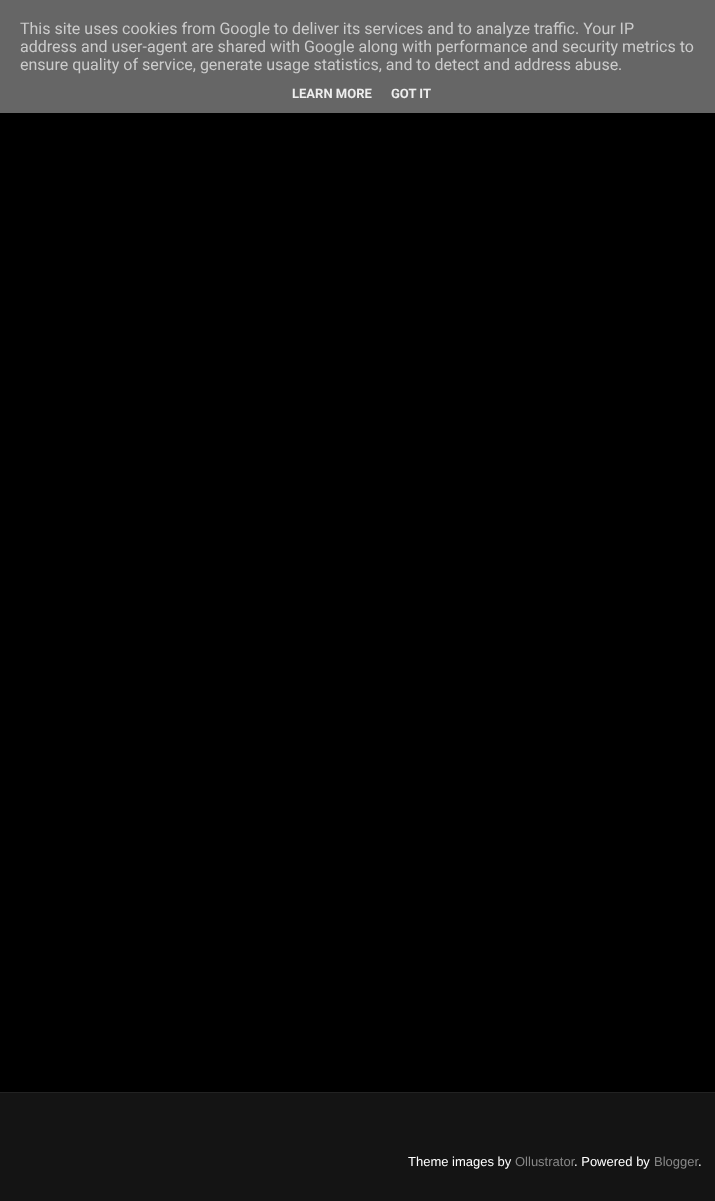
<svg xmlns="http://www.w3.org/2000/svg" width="715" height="1201">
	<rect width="100%" height="100%" fill="#000000" />
	<rect x="0" y="0" width="715" height="113" fill="#666666" />
	<g font-family="Roboto" font-size="16" fill="#CCCCCC">
		<text x="20" y="34">This site uses cookies from Google to deliver its services and to analyze traffic. Your IP</text>
		<text x="20" y="52">address and user-agent are shared with Google along with performance and security metrics to</text>
		<text x="20" y="70">ensure quality of service, generate usage statistics, and to detect and address abuse.</text>
	</g>
	<g font-family="Roboto" font-size="13" font-weight="700" fill="#EEEEEE">
		<text x="292" y="98">LEARN MORE</text>
		<text x="391" y="98">GOT IT</text>
	</g>
	<rect x="0" y="1093" width="715" height="108" fill="#141414" />
	<rect x="0" y="1092" width="715" height="1" fill="#222222" />
	<text x="408" y="1166" font-family="Liberation Sans" font-size="13" fill="#FFFFFF">Theme images by</text>
	<text x="515" y="1166" font-family="Liberation Sans" font-size="13" fill="#888888">Ollustrator</text>
	<text x="574" y="1166" font-family="Liberation Sans" font-size="13" fill="#FFFFFF">. Powered by</text>
	<text x="654" y="1166" font-family="Liberation Sans" font-size="13" fill="#888888">Blogger</text>
	<text x="698" y="1166" font-family="Liberation Sans" font-size="13" fill="#FFFFFF">.</text>
</svg>
